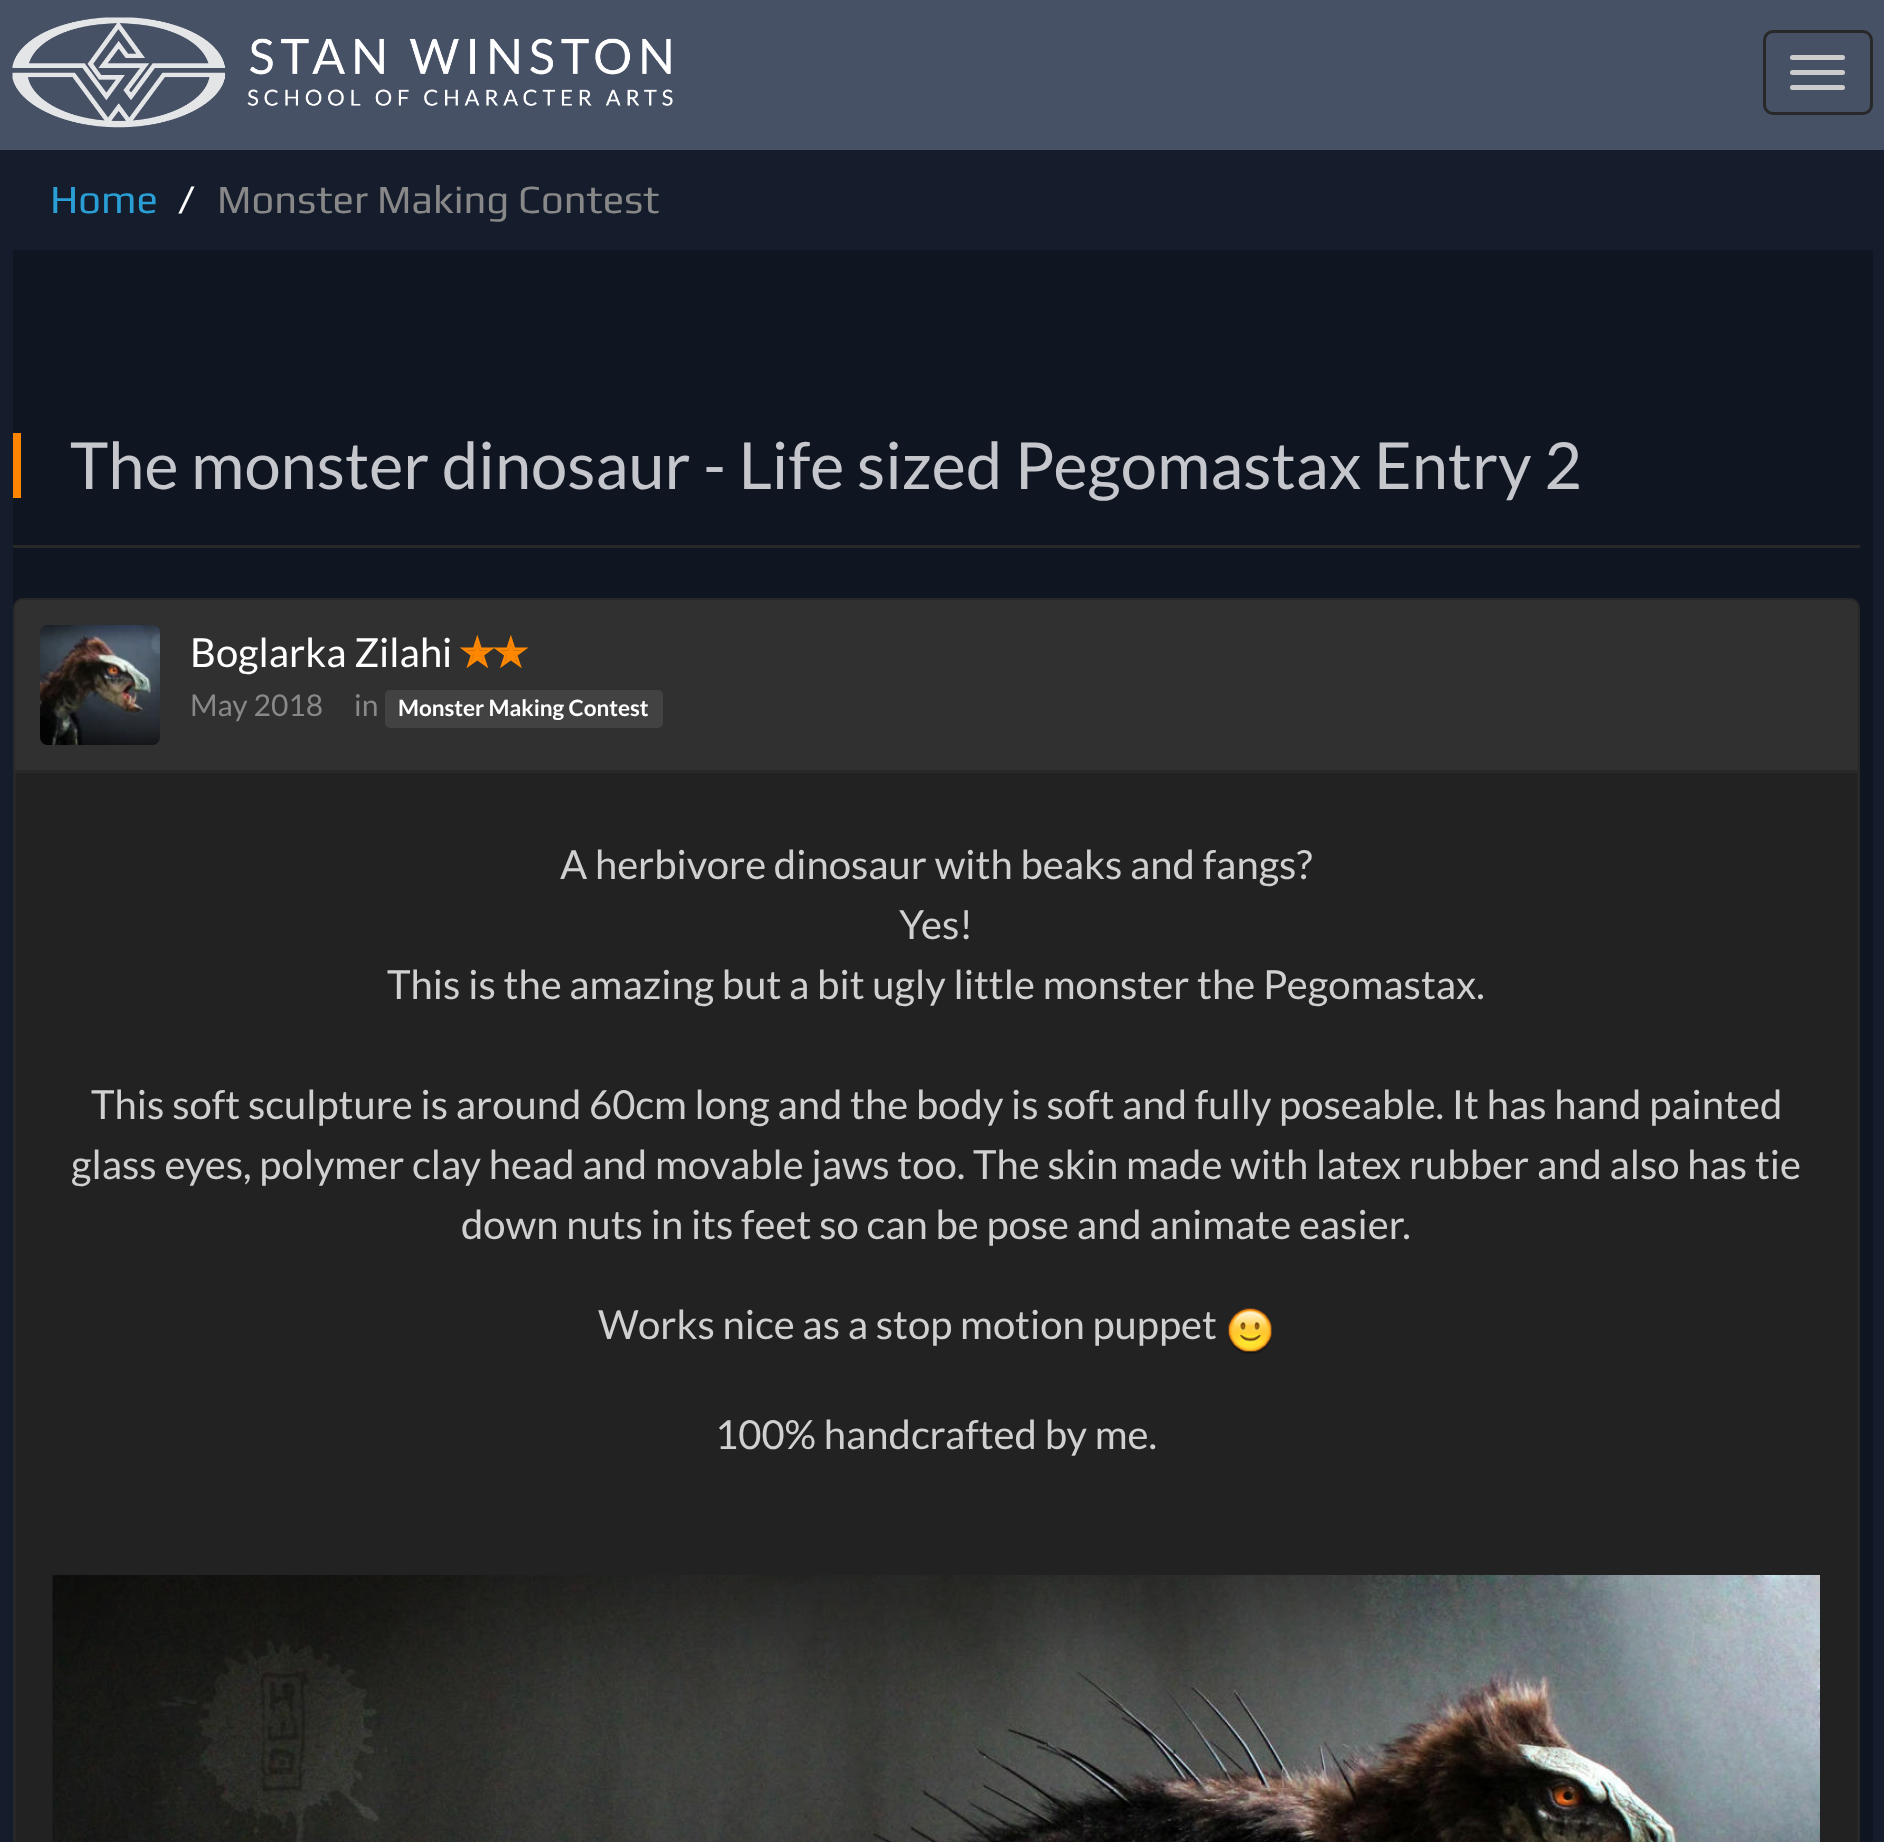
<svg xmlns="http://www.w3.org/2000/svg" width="1884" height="1842">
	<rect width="100%" height="100%" fill="#151C2B" />
	<rect x="0" y="0" width="1884" height="150" fill="#475166" />
	<image x="12" y="17" width="661" height="111" href="assets/img1.png" />
	<rect x="1764.5" y="31.5" width="107" height="82" rx="8.5" fill="none" stroke="#282828" stroke-width="3" />
	<rect x="1790" y="55" width="55" height="5" rx="2.5" fill="#CCCCCC" />
	<rect x="1790" y="70" width="55" height="5" rx="2.5" fill="#CCCCCC" />
	<rect x="1790" y="85" width="55" height="5" rx="2.5" fill="#CCCCCC" />
	<text x="50" y="213" font-family="Play" font-size="40" fill="#2A9FD6">Home</text>
	<text x="178" y="213" font-family="Play" font-size="40" fill="#FFFFFF">/</text>
	<text x="217" y="213" font-family="Play" font-size="40" fill="#888888">Monster Making Contest</text>
	<rect x="13" y="250" width="1860" height="1592" fill="#0F1521" />
	<rect x="13" y="545" width="1847" height="3" fill="#282828" />
	<rect x="13" y="433" width="8" height="65" fill="#FF8400" />
	<text x="70" y="489" font-family="Lato" font-size="65" fill="#C6C7CD">The monster dinosaur - Life sized Pegomastax Entry 2</text>
	<rect x="14.5" y="599.5" width="1844" height="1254" rx="8.5" fill="#222222" stroke="#282828" stroke-width="3" />
	<path d="M23 600H1850C1854.5 600 1858 603.5 1858 608V773H15V608C15 603.5 18.5 600 23 600Z" fill="#303030" />
	<rect x="15" y="770" width="1843" height="3" fill="#282828" />
	<image x="40" y="625" width="120" height="120" href="assets/img2.png" />
	<text x="190" y="667" font-family="Lato" font-size="40" fill="#FFFFFF">Boglarka Zilahi</text>
	<text x="460" y="667" font-family="DejaVu Sans" font-size="40" font-weight="700" fill="#FF8800">✭✭</text>
	<g font-family="Lato" font-size="30" fill="#888888">
		<text x="190" y="716">May 2018</text>
		<text x="354" y="716">in</text>
	</g>
	<rect x="385" y="690" width="278" height="38" rx="5" fill="#424242" />
	<text x="398" y="716" font-family="Lato" font-size="22.5" font-weight="700" fill="#FFFFFF">Monster Making Contest</text>
	<g font-family="Lato" font-size="40" fill="#D0D0D0">
		<text x="560" y="879">A herbivore dinosaur with beaks and fangs?</text>
		<text x="899" y="939">Yes!</text>
		<text x="387" y="999">This is the amazing but a bit ugly little monster the Pegomastax.</text>
		<text x="91" y="1119">This soft sculpture is around 60cm long and the body is soft and fully poseable. It has hand painted</text>
		<text x="71" y="1179">glass eyes, polymer clay head and movable jaws too. The skin made with latex rubber and also has tie</text>
		<text x="461" y="1239">down nuts in its feet so can be pose and animate easier.</text>
		<text x="598" y="1339">Works nice as a stop motion puppet</text>
	</g>
	<image x="1228" y="1308" width="44" height="46" href="assets/img3.png" />
	<text x="715" y="1449" font-family="Lato" font-size="40" fill="#D0D0D0">100% handcrafted by me.</text>
	<image x="52" y="1575" width="1768" height="267" href="assets/img4.png" />
</svg>
